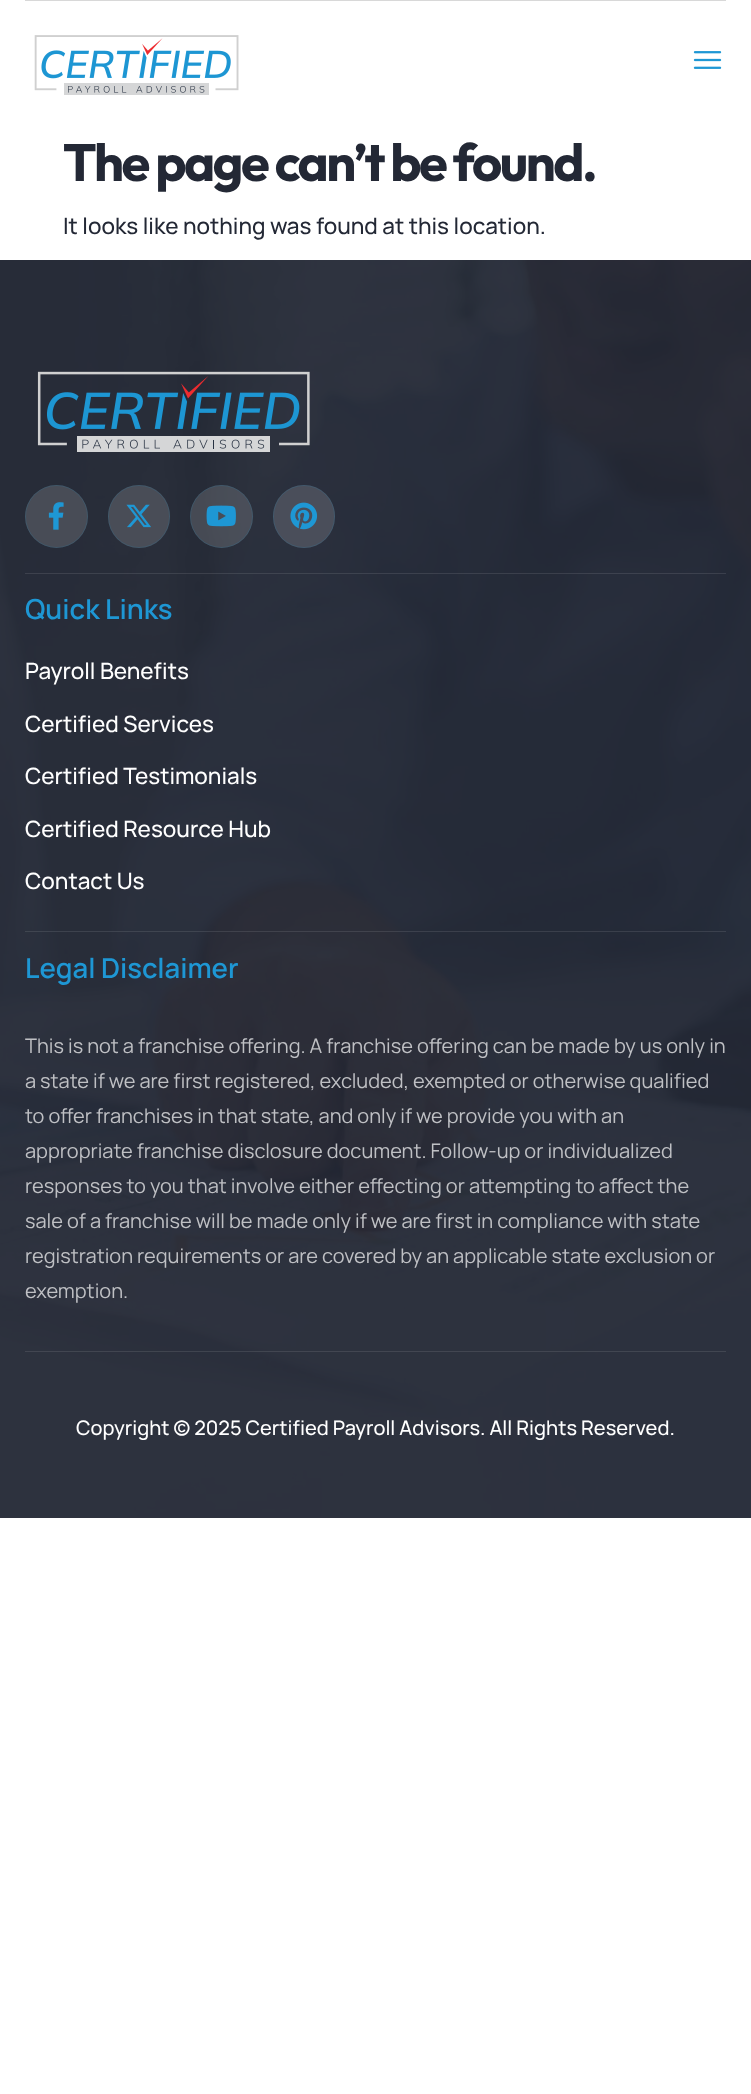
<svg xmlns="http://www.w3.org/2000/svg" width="751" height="2094">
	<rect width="100%" height="100%" fill="#FFFFFF" />
	<rect x="0" y="1517" width="751" height="1" fill="#2E333F" />
	<rect x="25" y="0" width="701" height="1" fill="#D8D8D8" />
	<image x="34" y="35" width="205" height="60" href="assets/img1.png" />
	<image x="693" y="51" width="29" height="18" href="assets/img2.png" />
	<text x="63" y="181" font-family="Outfit" font-size="52.5" font-weight="700" letter-spacing="-2.5" fill="#232835">The page can’t be found.</text>
	<text x="63" y="234" font-family="Manrope" font-size="22.5" font-weight="500" fill="#232835">It looks like nothing was found at this location.</text>
	<image x="0" y="260" width="751" height="1258" href="assets/img3.png" />
	<rect x="25" y="1351" width="701" height="1" fill="#FFFFFF" fill-opacity="0.1" />
	<rect x="25" y="573" width="701" height="1" fill="#FFFFFF" fill-opacity="0.1" />
	<image x="37" y="371" width="273" height="81" href="assets/img4.png" />
	<circle cx="56.5" cy="516.5" r="31.5" fill="#484C56" />
	<circle cx="56.5" cy="516.5" r="31" fill="none" stroke="#1E97D4" stroke-opacity="0.15" />
	<image x="48" y="502" width="16" height="28" href="assets/img5.png" />
	<rect x="108" y="485" width="62" height="63" rx="31" fill="#494D57" />
	<rect x="108.5" y="485.5" width="61" height="62" rx="30.5" fill="none" stroke="#1E97D4" stroke-opacity="0.15" />
	<image x="126" y="504" width="25" height="24" href="assets/img6.png" />
	<circle cx="221.5" cy="516.5" r="31.5" fill="#FFFFFF" fill-opacity="0.15" />
	<circle cx="221.5" cy="516.5" r="31" fill="none" stroke="#1E97D4" stroke-opacity="0.15" />
	<image x="206" y="505" width="30" height="22" href="assets/img7.png" />
	<rect x="273" y="485" width="62" height="63" rx="31" fill="#4A4E5A" />
	<rect x="273.5" y="485.5" width="61" height="62" rx="30.5" fill="none" stroke="#1E97D4" stroke-opacity="0.15" />
	<image x="290" y="502" width="28" height="28" href="assets/img8.png" />
	<rect x="25" y="931" width="701" height="1" fill="#FFFFFF" fill-opacity="0.1" />
	<text x="25" y="619" font-family="Manrope" font-size="27.5" font-weight="600" fill="#1E97D4">Quick Links</text>
	<g font-family="Manrope" font-size="22.5" font-weight="500" fill="#FFFFFF">
		<text x="25" y="679">Payroll Benefits</text>
		<text x="25" y="732">Certified Services</text>
		<text x="25" y="784">Certified Testimonials</text>
		<text x="25" y="837">Certified Resource Hub</text>
		<text x="25" y="889">Contact Us</text>
	</g>
	<text x="25" y="978" font-family="Manrope" font-size="27.5" font-weight="600" fill="#1E97D4">Legal Disclaimer</text>
	<g font-family="Manrope" font-size="20" fill="#BFC0C4">
		<text x="25" y="1053">This is not a franchise offering. A franchise offering can be made by us only in</text>
		<text x="25" y="1088">a state if we are first registered, excluded, exempted or otherwise qualified</text>
		<text x="25" y="1123">to offer franchises in that state, and only if we provide you with an</text>
		<text x="25" y="1158">appropriate franchise disclosure document. Follow-up or individualized</text>
		<text x="25" y="1193">responses to you that involve either effecting or attempting to affect the</text>
		<text x="25" y="1228">sale of a franchise will be made only if we are first in compliance with state</text>
		<text x="25" y="1263">registration requirements or are covered by an applicable state exclusion or</text>
		<text x="25" y="1298">exemption.</text>
	</g>
	<text x="76" y="1435" font-family="Manrope" font-size="20" font-weight="500" fill="#FFFFFF">Copyright © 2025 Certified Payroll Advisors. All Rights Reserved.</text>
</svg>
